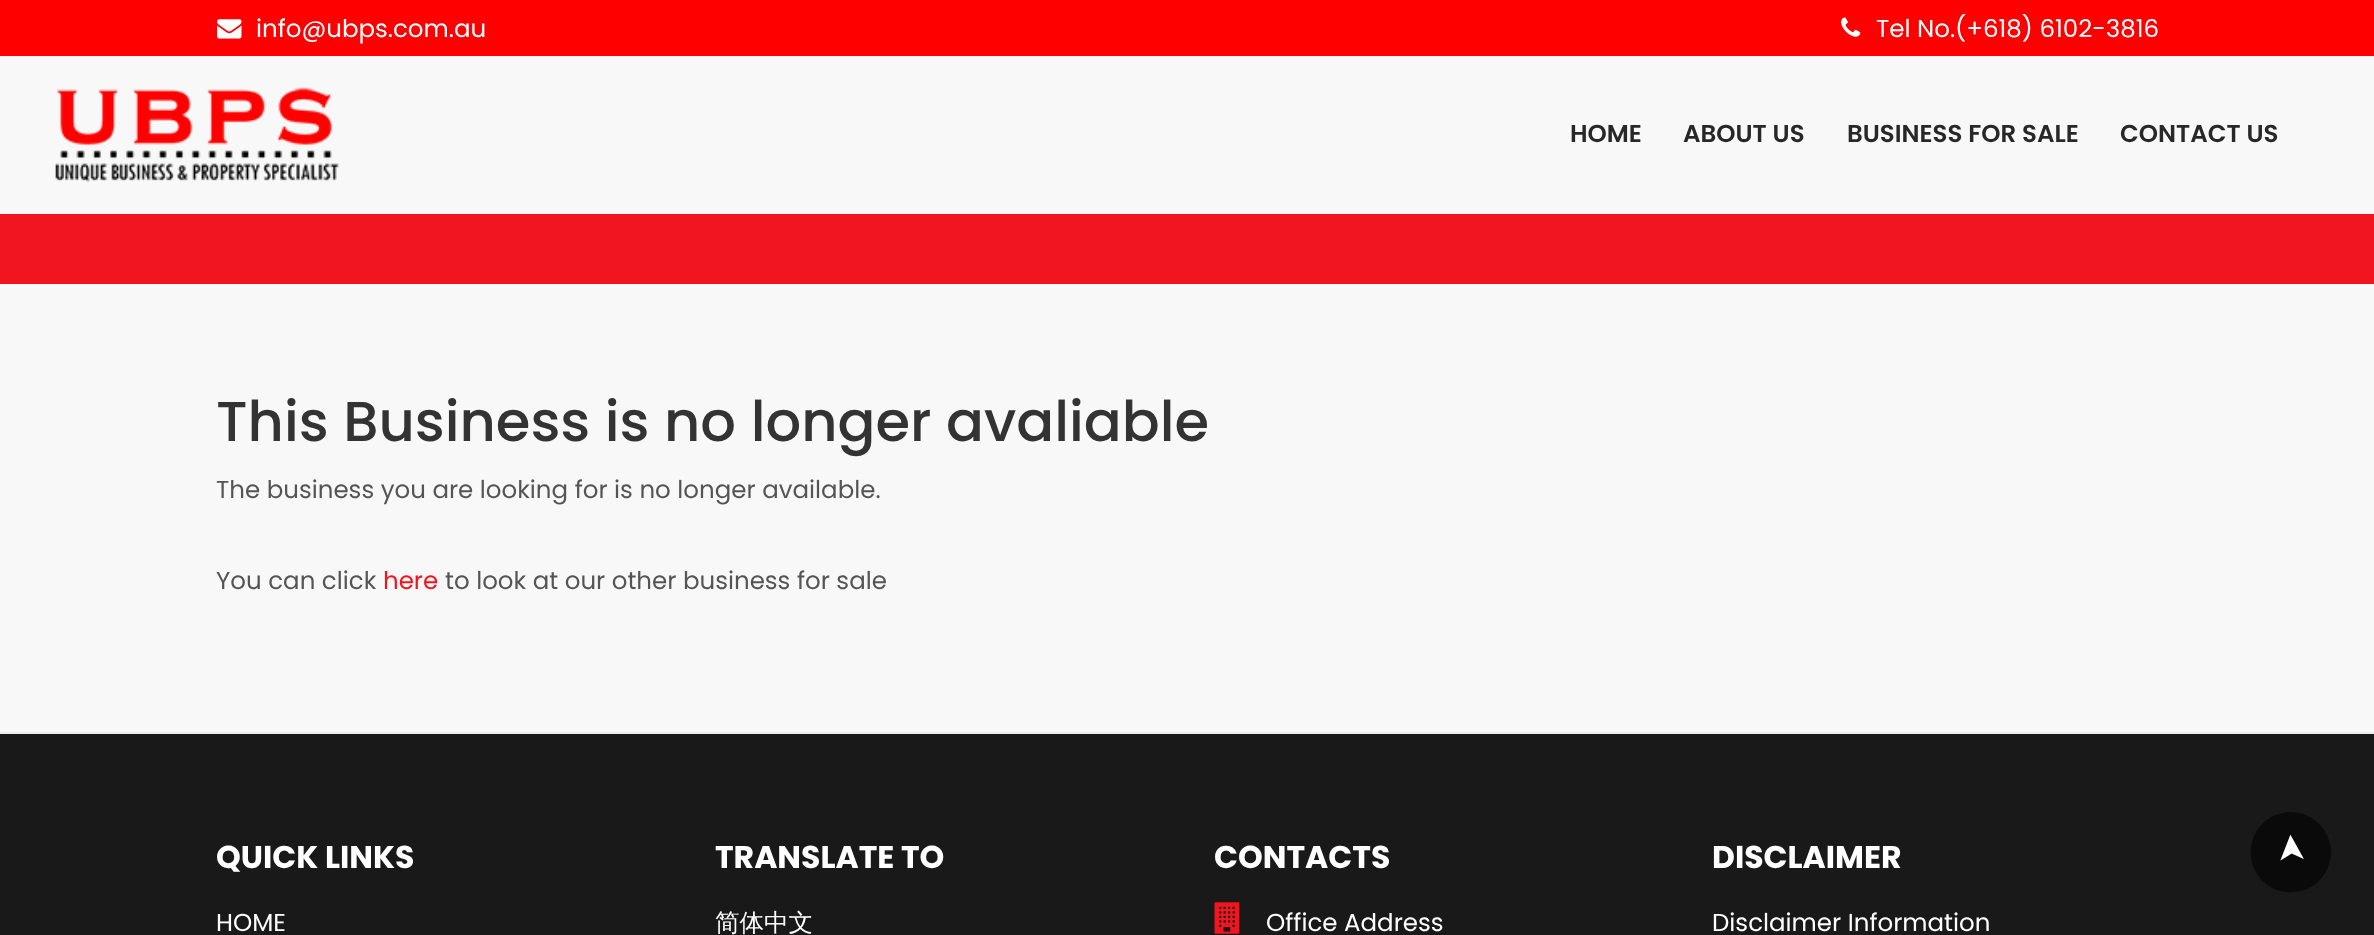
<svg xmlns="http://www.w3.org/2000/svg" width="2374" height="935">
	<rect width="100%" height="100%" fill="#F8F8F8" />
	<rect x="0" y="0" width="2374" height="56" fill="#FF0000" />
	<image x="217" y="19" width="25" height="20" href="assets/img1.png" />
	<text x="256" y="37" font-family="Poppins" font-size="24.5" fill="#FFFFFF">info@ubps.com.au</text>
	<image x="1841" y="17" width="20" height="20" href="assets/img2.png" />
	<text x="1876" y="37" font-family="Poppins" font-size="24.5" fill="#FFFFFF">Tel No.(+618) 6102-3816</text>
	<image x="55" y="87" width="284" height="95" href="assets/img3.png" />
	<g font-family="Poppins" font-size="24.5" font-weight="600" fill="#282828">
		<text x="1570" y="142">HOME</text>
		<text x="1683" y="142">ABOUT US</text>
		<text x="1847" y="142">BUSINESS FOR SALE</text>
		<text x="2120" y="142">CONTACT US</text>
	</g>
	<rect x="0" y="214" width="2374" height="70" fill="#F0151F" />
	<text x="216" y="441" font-family="Poppins" font-size="56" font-weight="500" fill="#333333">This Business is no longer avaliable</text>
	<g font-family="Poppins" font-size="24.5" fill="#555555">
		<text x="216" y="498">The business you are looking for is no longer available.</text>
		<text x="216" y="589">You can click</text>
	</g>
	<text x="383" y="589" font-family="Poppins" font-size="24.5" fill="#F0151F">here</text>
	<text x="445" y="589" font-family="Poppins" font-size="24.5" fill="#555555">to look at our other business for sale</text>
	<rect x="0" y="734" width="2374" height="201" fill="#191919" />
	<rect x="0" y="732" width="2374" height="2" fill="#EDEDED" />
	<text x="216" y="868" font-family="Poppins" font-size="31.5" font-weight="700" fill="#FFFFFF">QUICK LINKS</text>
	<text x="216" y="931" font-family="Poppins" font-size="24.5" fill="#FFFFFF">HOME</text>
	<text x="715" y="868" font-family="Poppins" font-size="31.5" font-weight="700" fill="#FFFFFF">TRANSLATE TO</text>
	<text x="715" y="931" font-family="WenQuanYi Zen Hei" font-size="24.5" font-weight="500" fill="#FFFFFF">简体中文</text>
	<text x="1214" y="868" font-family="Poppins" font-size="31.5" font-weight="700" fill="#FFFFFF">CONTACTS</text>
	<image x="1214" y="902" width="26" height="32" href="assets/img4.png" />
	<text x="1266" y="931" font-family="Poppins" font-size="24.5" fill="#FFFFFF">Office Address</text>
	<text x="1712" y="868" font-family="Poppins" font-size="31.5" font-weight="700" fill="#FFFFFF">DISCLAIMER</text>
	<text x="1712" y="931" font-family="Poppins" font-size="24.5" fill="#FFFFFF">Disclaimer Information</text>
	<path d="M2251 855C2249 833 2266 814 2288 812C2310 811 2329 827 2331 849C2332 872 2316 891 2294 892C2271 894 2252 877 2251 855Z" fill="#0A0A0A" />
	<text x="2304" y="863" transform="rotate(-94 2304 863)" font-family="DejaVu Sans" font-size="37" fill="#FFFFFF">➤</text>
</svg>
